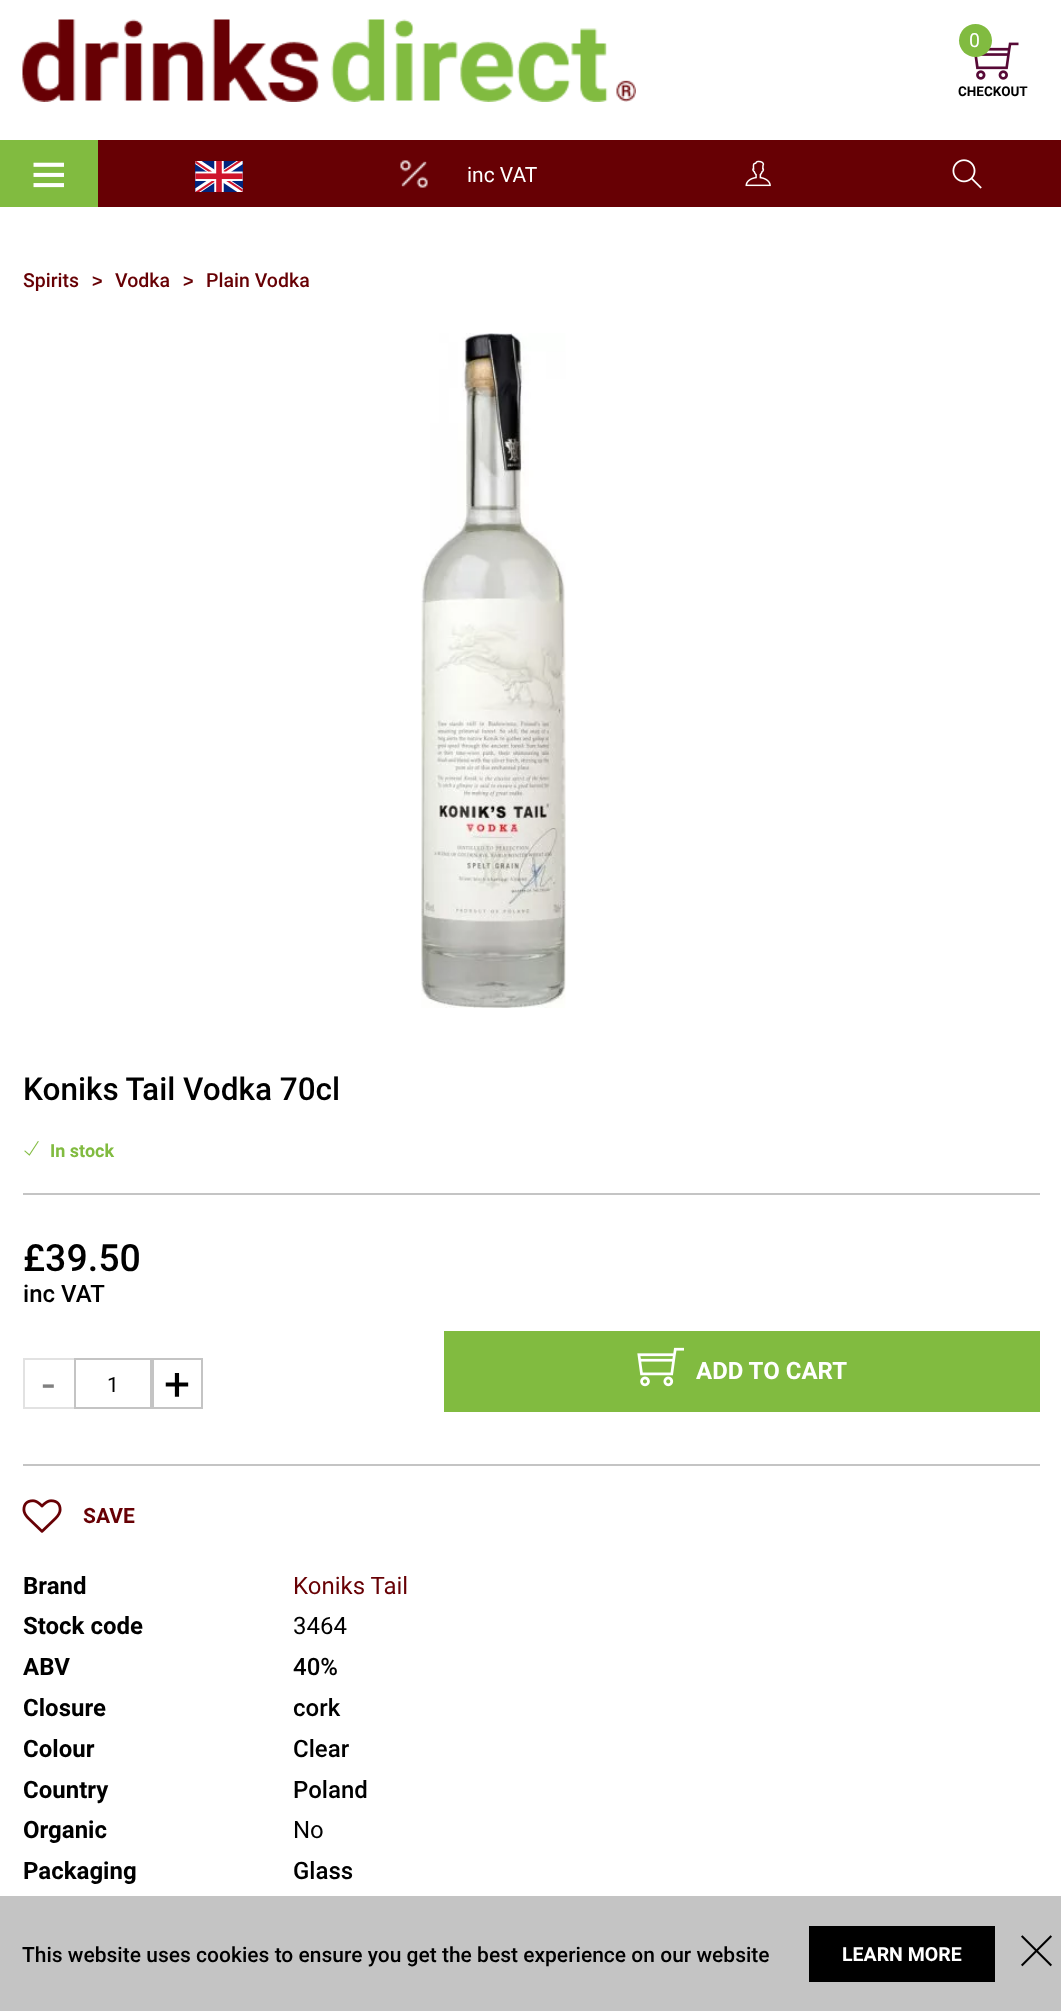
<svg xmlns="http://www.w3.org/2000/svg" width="1061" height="2011">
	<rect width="100%" height="100%" fill="#FFFFFF" />
	<image x="22" y="19" width="614" height="83" href="assets/img1.png" />
	<image x="974" y="42" width="45" height="38" href="assets/img2.png" />
	<circle cx="975.5" cy="40.5" r="16.5" fill="#81BB40" />
	<text x="969" y="47" font-family="Roboto" font-size="19.5" fill="#FFFFFF">0</text>
	<text x="958" y="96" font-family="Roboto" font-size="13.5" font-weight="700" fill="#000000">CHECKOUT</text>
	<rect x="0" y="140" width="98" height="67" fill="#81BB40" />
	<image x="33" y="162" width="31" height="26" href="assets/img3.png" />
	<rect x="98" y="140" width="963" height="67" fill="#670004" />
	<image x="195" y="161" width="48" height="31" href="assets/img4.png" />
	<image x="400" y="160" width="28" height="28" href="assets/img5.png" />
	<text x="467" y="182" font-family="Roboto" font-size="21" fill="#FFFFFF">inc VAT</text>
	<image x="745" y="160" width="26" height="27" href="assets/img6.png" />
	<image x="952" y="159" width="30" height="30" href="assets/img7.png" />
	<text x="23" y="287" font-family="Roboto" font-size="19.5" font-weight="500" fill="#670004">Spirits</text>
	<text x="92" y="287" font-family="Liberation Sans" font-size="18" font-weight="700" fill="#670004">&gt;</text>
	<text x="115" y="287" font-family="Roboto" font-size="19.5" font-weight="500" fill="#670004">Vodka</text>
	<text x="183" y="287" font-family="Liberation Sans" font-size="18" font-weight="700" fill="#670004">&gt;</text>
	<text x="206" y="287" font-family="Roboto" font-size="19.5" font-weight="500" fill="#670004">Plain Vodka</text>
	<image x="421" y="333" width="145" height="675" href="assets/img8.png" />
	<text x="23" y="1100" font-family="Roboto" font-size="31.5" font-weight="500" fill="#000000">Koniks Tail Vodka 70cl</text>
	<rect x="23" y="1193" width="1017" height="2" fill="#C4C4C4" />
	<image x="24" y="1141" width="15" height="15" href="assets/img9.png" />
	<text x="50" y="1157" font-family="Roboto" font-size="18" font-weight="700" fill="#81BB40">In stock</text>
	<rect x="23" y="1464" width="1017" height="2" fill="#C4C4C4" />
	<text x="23" y="1271" font-family="Roboto" font-size="37.5" font-weight="500" fill="#000000">£39.50</text>
	<text x="23" y="1302" font-family="Roboto" font-size="24" font-weight="500" fill="#000000">inc VAT</text>
	<rect x="23" y="1358" width="51" height="2" fill="#E2E2E2" />
	<rect x="23" y="1407" width="51" height="2" fill="#E2E2E2" />
	<rect x="23" y="1358" width="2" height="51" fill="#E2E2E2" />
	<text x="42" y="1400" font-family="Roboto" font-size="46" fill="#808080">-</text>
	<rect x="75" y="1359" width="76" height="49" fill="none" stroke="#C4C4C4" stroke-width="2" />
	<text x="107" y="1392" font-family="Roboto" font-size="21" fill="#000000">1</text>
	<rect x="153" y="1359" width="49" height="49" fill="none" stroke="#C4C4C4" stroke-width="2" />
	<text x="164" y="1400" font-family="Roboto" font-size="46" fill="#000000">+</text>
	<rect x="444" y="1331" width="596" height="81" fill="#81BB40" />
	<image x="637" y="1347" width="47" height="40" href="assets/img10.png" />
	<text x="696" y="1379" font-family="Roboto" font-size="24" font-weight="700" fill="#FFFFFF">ADD TO CART</text>
	<image x="22" y="1499" width="40" height="34" href="assets/img11.png" />
	<text x="83" y="1523" font-family="Roboto" font-size="21" font-weight="700" fill="#670004">SAVE</text>
	<text x="23" y="1594" font-family="Roboto" font-size="24" font-weight="700" fill="#000000">Brand</text>
	<text x="293" y="1594" font-family="Roboto" font-size="24" fill="#670004">Koniks Tail</text>
	<text x="23" y="1634" font-family="Roboto" font-size="24" font-weight="700" fill="#000000">Stock code</text>
	<text x="293" y="1634" font-family="Roboto" font-size="24" fill="#000000">3464</text>
	<text x="23" y="1675" font-family="Roboto" font-size="24" font-weight="700" fill="#000000">ABV</text>
	<text x="293" y="1675" font-family="Roboto" font-size="24" font-weight="500" fill="#000000">40%</text>
	<text x="23" y="1716" font-family="Roboto" font-size="24" font-weight="700" fill="#000000">Closure</text>
	<text x="293" y="1716" font-family="Roboto" font-size="24" font-weight="500" fill="#000000">cork</text>
	<text x="23" y="1757" font-family="Roboto" font-size="24" font-weight="700" fill="#000000">Colour</text>
	<text x="293" y="1757" font-family="Roboto" font-size="24" font-weight="500" fill="#000000">Clear</text>
	<text x="23" y="1798" font-family="Roboto" font-size="24" font-weight="700" fill="#000000">Country</text>
	<text x="293" y="1798" font-family="Roboto" font-size="24" font-weight="500" fill="#000000">Poland</text>
	<text x="23" y="1838" font-family="Roboto" font-size="24" font-weight="700" fill="#000000">Organic</text>
	<text x="293" y="1838" font-family="Roboto" font-size="24" fill="#000000">No</text>
	<text x="23" y="1879" font-family="Roboto" font-size="24" font-weight="700" fill="#000000">Packaging</text>
	<text x="293" y="1879" font-family="Roboto" font-size="24" font-weight="500" fill="#000000">Glass</text>
	<rect x="0" y="1896" width="1061" height="115" fill="#C4C4C4" />
	<text x="22" y="1962" font-family="Roboto" font-size="21" font-weight="500" fill="#000000">This website uses cookies to ensure you get the best experience on our website</text>
	<rect x="809" y="1926" width="186" height="56" fill="#000000" />
	<text x="842" y="1961" font-family="Roboto" font-size="19.5" font-weight="700" fill="#FFFFFF">LEARN MORE</text>
	<image x="1021" y="1935" width="31" height="32" href="assets/img12.png" />
</svg>
